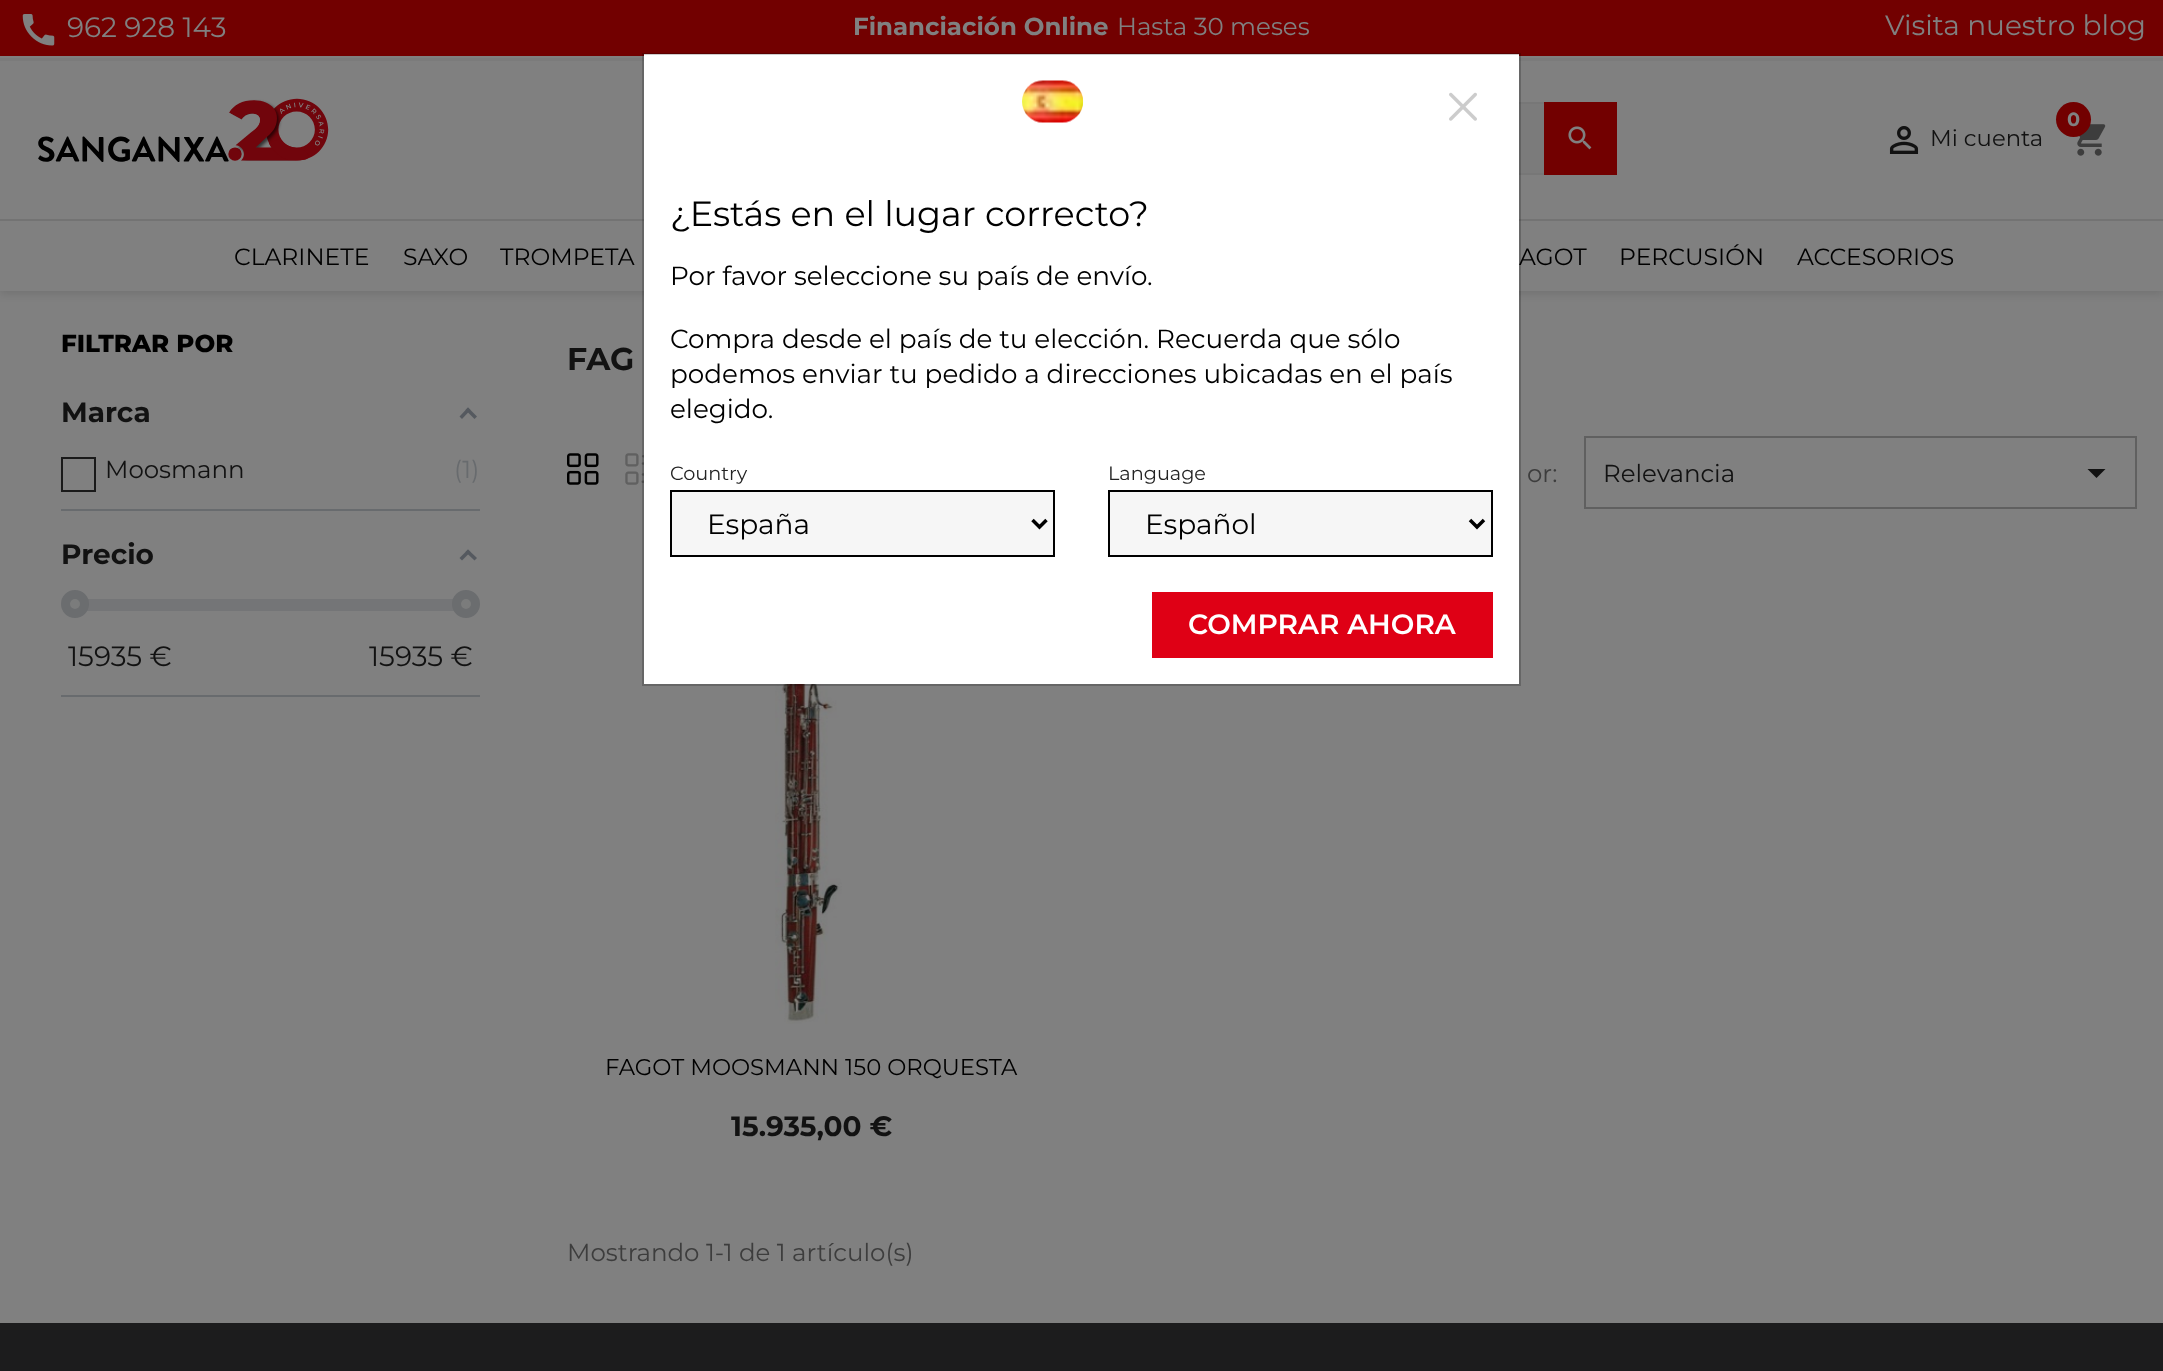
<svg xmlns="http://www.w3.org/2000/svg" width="2163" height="1371">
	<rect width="100%" height="100%" fill="#808080" />
	<rect x="0" y="4" width="2163" height="290" fill="#000000" fill-opacity="0.11" filter="blur(4.5px)" />
	<rect x="0" y="56" width="2163" height="2" fill="#808080" />
	<rect x="0" y="0" width="2163" height="56" fill="#720000" />
	<image x="22" y="14" width="33" height="32" href="assets/img1.png" />
	<text x="67" y="37" font-family="Montserrat" font-size="28" fill="#808080">962 928 143</text>
	<text x="853" y="35" font-family="Montserrat" font-size="24.5" font-weight="700" fill="#808080">Financiación Online</text>
	<text x="1117" y="35" font-family="Montserrat" font-size="24.5" fill="#808080">Hasta 30 meses</text>
	<text x="1885" y="35" font-family="Montserrat" font-size="28" fill="#808080">Visita nuestro blog</text>
	<rect x="0" y="58" width="2163" height="3" fill="#7B7B7B" />
	<rect x="0" y="61" width="2163" height="230" fill="#808080" />
	<image x="38" y="98" width="291" height="64" href="assets/img2.png" />
	<rect x="1519" y="104" width="25" height="69" fill="#7B7B7B" />
	<rect x="656" y="103" width="960" height="71" fill="none" stroke="#777777" stroke-width="2" />
	<rect x="1544" y="102" width="73" height="73" fill="#720000" />
	<image x="1568" y="126" width="24" height="24" href="assets/img3.png" />
	<image x="2077" y="124" width="29" height="32" href="assets/img4.png" />
	<circle cx="2073.5" cy="119.5" r="17.5" fill="#720000" />
	<text x="2067" y="126" font-family="Montserrat" font-size="19.25" font-weight="700" fill="#808080">0</text>
	<image x="1889" y="126" width="30" height="28" href="assets/img5.png" />
	<text x="1930" y="146" font-family="Montserrat" font-size="22.75" fill="#121212">Mi cuenta</text>
	<rect x="0" y="219" width="2163" height="2" fill="#737373" />
	<g font-family="Montserrat" font-size="23.5" fill="#000000">
		<text x="234" y="265">CLARINETE</text>
		<text x="403" y="265">SAXO</text>
		<text x="500" y="265">TROMPETA</text>
		<text x="1519" y="265">AGOT</text>
		<text x="1619" y="265">PERCUSIÓN</text>
		<text x="1797" y="265">ACCESORIOS</text>
	</g>
	<rect x="0" y="1323" width="2163" height="48" fill="#1C1C1D" />
	<rect x="644" y="54" width="875" height="630" fill="#FFFFFF" />
	<image x="625" y="453" width="19" height="32" href="assets/img9.png" />
	<image x="775" y="684" width="67" height="340" href="assets/img10.png" />
	<rect x="643" y="54" width="877" height="631" fill="none" stroke="#000000" stroke-opacity="0.2" stroke-width="2" />
	<image x="1022" y="80" width="62" height="43" href="assets/img6.png" />
	<image x="1449" y="92" width="28" height="29" href="assets/img7.png" />
	<text x="670" y="226" font-family="Montserrat" font-size="35" fill="#000000">¿Estás en el lugar correcto?</text>
	<g font-family="Montserrat" font-size="26.25" fill="#000000">
		<text x="670" y="285">Por favor seleccione su país de envío.</text>
		<text x="670" y="348">Compra desde el país de tu elección. Recuerda que sólo</text>
		<text x="670" y="383">podemos enviar tu pedido a direcciones ubicadas en el país</text>
		<text x="670" y="418">elegido.</text>
	</g>
	<text x="670" y="480" font-family="Montserrat" font-size="19.25" fill="#232323">Country</text>
	<rect x="671" y="491" width="383" height="65" fill="#F6F6F6" stroke="#000000" stroke-width="2" />
	<path d="M1032.5 520L1039.5 527L1046.5 520" fill="none" stroke="#000000" stroke-width="3.5" />
	<text x="707" y="534" font-family="Montserrat" font-size="28" fill="#000000">España</text>
	<text x="1108" y="480" font-family="Montserrat" font-size="19.25" fill="#232323">Language</text>
	<rect x="1109" y="491" width="383" height="65" fill="#F6F6F6" stroke="#000000" stroke-width="2" />
	<path d="M1470 520L1477 527L1484 520" fill="none" stroke="#000000" stroke-width="3.5" />
	<text x="1145" y="534" font-family="Montserrat" font-size="28" fill="#000000">Español</text>
	<rect x="1152" y="592" width="341" height="66" fill="#DF0015" />
	<text x="1188" y="634" font-family="Montserrat" font-size="28" font-weight="600" fill="#FFFFFF">COMPRAR AHORA</text>
	<text x="61" y="352" font-family="Montserrat" font-size="24.5" font-weight="800" fill="#000000">FILTRAR POR</text>
	<rect x="61" y="509" width="419" height="2" fill="#686B6E" />
	<text x="61" y="422" font-family="Montserrat" font-size="28" font-weight="700" fill="#121212">Marca</text>
	<path d="M468 407.5L477 416.5L474.5 419L465.5 410Z" fill="#55595F" />
	<path d="M468 407.5L470.5 410L462 419L459.5 416.5Z" fill="#55595F" />
	<rect x="62" y="458" width="33" height="33" fill="none" stroke="#1A1A1A" stroke-width="2" />
	<text x="105" y="478" font-family="Montserrat" font-size="24.5" fill="#121212">Moosmann</text>
	<text x="454" y="478" font-family="Montserrat" font-size="24.5" fill="#686B6E">(1)</text>
	<rect x="61" y="695" width="419" height="2" fill="#686B6E" />
	<text x="61" y="564" font-family="Montserrat" font-size="28" font-weight="700" fill="#121212">Precio</text>
	<path d="M468 549.5L477 558L474.5 560.5L465.5 552Z" fill="#55595F" />
	<path d="M468 549.5L470.5 552L462 560.5L459.5 558Z" fill="#55595F" />
	<rect x="87" y="599" width="367" height="12" fill="#747577" />
	<circle cx="75" cy="604" r="9.5" fill="#7B7C7C" stroke="#6B6D6F" stroke-width="9" />
	<circle cx="466" cy="604" r="9.5" fill="#7B7C7C" stroke="#6B6D6F" stroke-width="9" />
	<g font-family="Montserrat" font-size="28" fill="#121212">
		<text x="68" y="666">15935 €</text>
		<text x="369" y="666">15935 €</text>
	</g>
	<text x="567" y="370" font-family="Montserrat" font-size="31.5" font-weight="700" fill="#121212">FAG</text>
	<image x="567" y="453" width="32" height="32" href="assets/img8.png" />
	<text x="1527" y="482" font-family="Montserrat" font-size="24.5" fill="#3D3D3D">or:</text>
	<rect x="1585" y="437" width="551" height="71" fill="none" stroke="#606060" stroke-width="2" />
	<text x="1603" y="482" font-family="Montserrat" font-size="24.5" fill="#121212">Relevancia</text>
	<path d="M2087.5 469H2105.5L2096.5 478Z" fill="#121212" />
	<text x="605" y="1075" font-family="Montserrat" font-size="22.75" fill="#000000">FAGOT MOOSMANN 150 ORQUESTA</text>
	<text x="731" y="1136" font-family="Montserrat" font-size="28" font-weight="700" fill="#121212">15.935,00 €</text>
	<text x="567" y="1261" font-family="Montserrat" font-size="24.5" fill="#3D3D3D">Mostrando 1-1 de 1 artículo(s)</text>
</svg>
